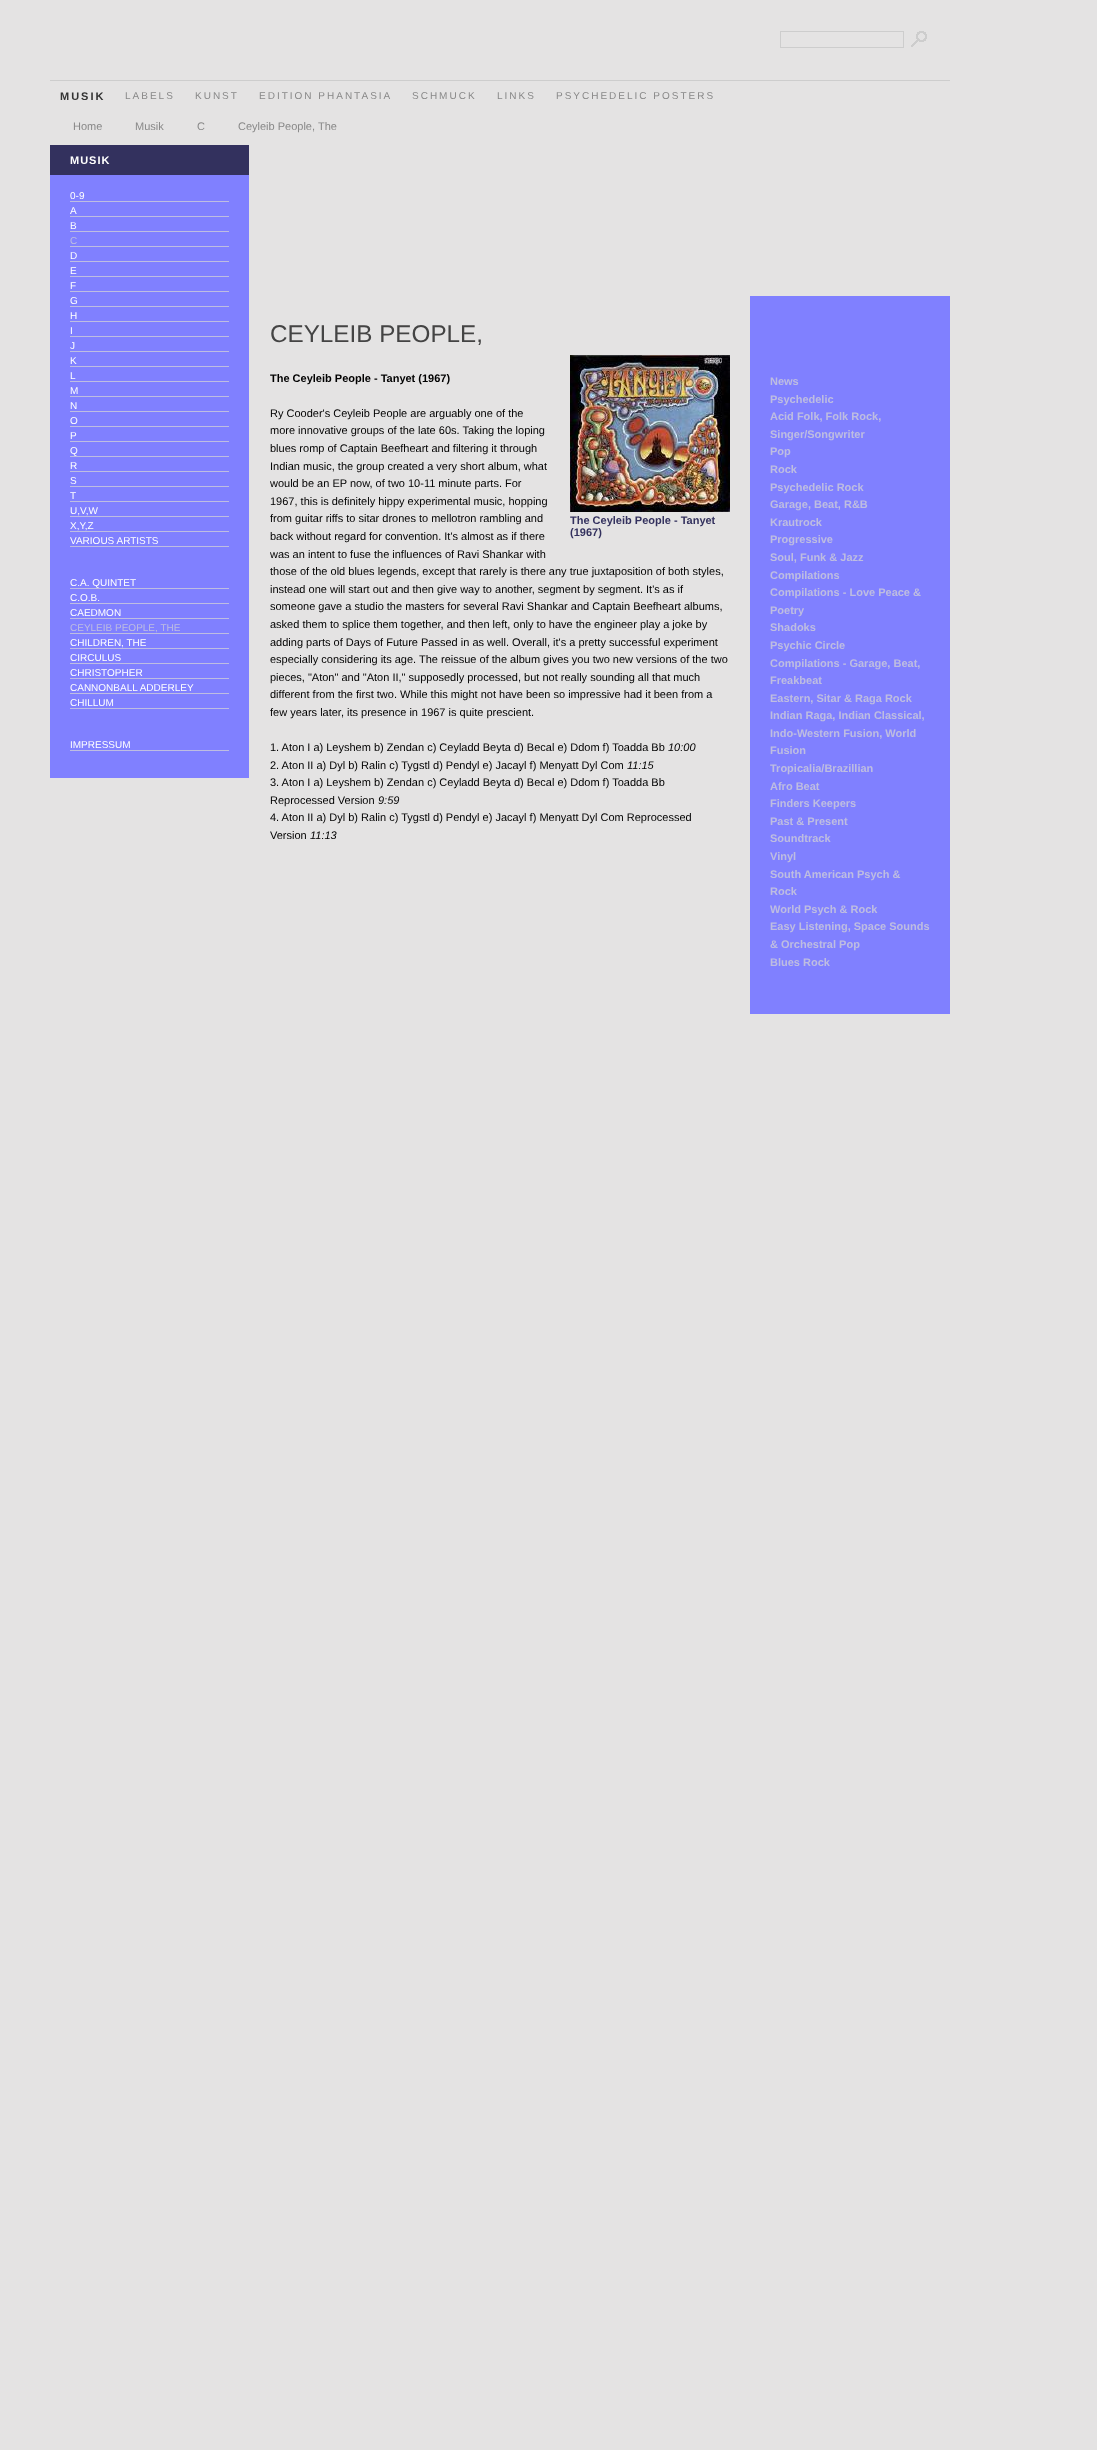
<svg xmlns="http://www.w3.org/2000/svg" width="1097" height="2450">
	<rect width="100%" height="100%" fill="#E4E3E3" />
	<rect x="780.5" y="31.5" width="123" height="16" fill="none" stroke="#CDCDCD" />
	<image x="911" y="31" width="16" height="16" href="assets/img1.png" />
	<rect x="50" y="80" width="900" height="1" fill="#CDCDCD" />
	<text x="60" y="100" font-family="Liberation Sans" font-size="11" font-weight="700" letter-spacing="2" fill="#333333">MUSIK</text>
	<g font-family="Liberation Sans" font-size="10" letter-spacing="2" fill="#888888">
		<text x="125" y="99">LABELS</text>
		<text x="195" y="99">KUNST</text>
		<text x="259" y="99">EDITION PHANTASIA</text>
		<text x="412" y="99">SCHMUCK</text>
		<text x="497" y="99">LINKS</text>
		<text x="556" y="99">PSYCHEDELIC POSTERS</text>
	</g>
	<g font-family="Liberation Sans" font-size="11" fill="#888888">
		<text x="73" y="130">Home</text>
		<text x="135" y="130">Musik</text>
		<text x="197" y="130">C</text>
		<text x="238" y="130">Ceyleib People, The</text>
	</g>
	<rect x="50" y="175" width="199" height="603" fill="#8080FF" />
	<rect x="50" y="145" width="199" height="30" fill="#33315E" />
	<text x="70" y="164" font-family="Liberation Sans" font-size="11" font-weight="700" letter-spacing="1" fill="#FFFFFF">MUSIK</text>
	<rect x="70" y="201" width="159" height="1" fill="#BEBDE1" />
	<text x="70" y="199" font-family="Liberation Sans" font-size="10" fill="#FFFFFF">0-9</text>
	<rect x="70" y="216" width="159" height="1" fill="#BEBDE1" />
	<text x="70" y="214" font-family="Liberation Sans" font-size="10" fill="#FFFFFF">A</text>
	<rect x="70" y="231" width="159" height="1" fill="#BEBDE1" />
	<text x="70" y="229" font-family="Liberation Sans" font-size="10" fill="#FFFFFF">B</text>
	<rect x="70" y="246" width="159" height="1" fill="#BEBDE1" />
	<text x="70" y="244" font-family="Liberation Sans" font-size="10" fill="#BEBDE1">C</text>
	<rect x="70" y="261" width="159" height="1" fill="#BEBDE1" />
	<text x="70" y="259" font-family="Liberation Sans" font-size="10" fill="#FFFFFF">D</text>
	<rect x="70" y="276" width="159" height="1" fill="#BEBDE1" />
	<text x="70" y="274" font-family="Liberation Sans" font-size="10" fill="#FFFFFF">E</text>
	<rect x="70" y="291" width="159" height="1" fill="#BEBDE1" />
	<text x="70" y="289" font-family="Liberation Sans" font-size="10" fill="#FFFFFF">F</text>
	<rect x="70" y="306" width="159" height="1" fill="#BEBDE1" />
	<text x="70" y="304" font-family="Liberation Sans" font-size="10" fill="#FFFFFF">G</text>
	<rect x="70" y="321" width="159" height="1" fill="#BEBDE1" />
	<text x="70" y="319" font-family="Liberation Sans" font-size="10" fill="#FFFFFF">H</text>
	<rect x="70" y="336" width="159" height="1" fill="#BEBDE1" />
	<text x="70" y="334" font-family="Liberation Sans" font-size="10" fill="#FFFFFF">I</text>
	<rect x="70" y="351" width="159" height="1" fill="#BEBDE1" />
	<text x="70" y="349" font-family="Liberation Sans" font-size="10" fill="#FFFFFF">J</text>
	<rect x="70" y="366" width="159" height="1" fill="#BEBDE1" />
	<text x="70" y="364" font-family="Liberation Sans" font-size="10" fill="#FFFFFF">K</text>
	<rect x="70" y="381" width="159" height="1" fill="#BEBDE1" />
	<text x="70" y="379" font-family="Liberation Sans" font-size="10" fill="#FFFFFF">L</text>
	<rect x="70" y="396" width="159" height="1" fill="#BEBDE1" />
	<text x="70" y="394" font-family="Liberation Sans" font-size="10" fill="#FFFFFF">M</text>
	<rect x="70" y="411" width="159" height="1" fill="#BEBDE1" />
	<text x="70" y="409" font-family="Liberation Sans" font-size="10" fill="#FFFFFF">N</text>
	<rect x="70" y="426" width="159" height="1" fill="#BEBDE1" />
	<text x="70" y="424" font-family="Liberation Sans" font-size="10" fill="#FFFFFF">O</text>
	<rect x="70" y="441" width="159" height="1" fill="#BEBDE1" />
	<text x="70" y="439" font-family="Liberation Sans" font-size="10" fill="#FFFFFF">P</text>
	<rect x="70" y="456" width="159" height="1" fill="#BEBDE1" />
	<text x="70" y="454" font-family="Liberation Sans" font-size="10" fill="#FFFFFF">Q</text>
	<rect x="70" y="471" width="159" height="1" fill="#BEBDE1" />
	<text x="70" y="469" font-family="Liberation Sans" font-size="10" fill="#FFFFFF">R</text>
	<rect x="70" y="486" width="159" height="1" fill="#BEBDE1" />
	<text x="70" y="484" font-family="Liberation Sans" font-size="10" fill="#FFFFFF">S</text>
	<rect x="70" y="501" width="159" height="1" fill="#BEBDE1" />
	<text x="70" y="499" font-family="Liberation Sans" font-size="10" fill="#FFFFFF">T</text>
	<rect x="70" y="516" width="159" height="1" fill="#BEBDE1" />
	<text x="70" y="514" font-family="Liberation Sans" font-size="10" fill="#FFFFFF">U,V,W</text>
	<rect x="70" y="531" width="159" height="1" fill="#BEBDE1" />
	<text x="70" y="529" font-family="Liberation Sans" font-size="10" fill="#FFFFFF">X,Y,Z</text>
	<rect x="70" y="546" width="159" height="1" fill="#BEBDE1" />
	<text x="70" y="544" font-family="Liberation Sans" font-size="10" fill="#FFFFFF">VARIOUS ARTISTS</text>
	<rect x="70" y="588" width="159" height="1" fill="#BEBDE1" />
	<text x="70" y="586" font-family="Liberation Sans" font-size="10" fill="#FFFFFF">C.A. QUINTET</text>
	<rect x="70" y="603" width="159" height="1" fill="#BEBDE1" />
	<text x="70" y="601" font-family="Liberation Sans" font-size="10" fill="#FFFFFF">C.O.B.</text>
	<rect x="70" y="618" width="159" height="1" fill="#BEBDE1" />
	<text x="70" y="616" font-family="Liberation Sans" font-size="10" fill="#FFFFFF">CAEDMON</text>
	<rect x="70" y="633" width="159" height="1" fill="#BEBDE1" />
	<text x="70" y="631" font-family="Liberation Sans" font-size="10" fill="#BEBDE1">CEYLEIB PEOPLE, THE</text>
	<rect x="70" y="648" width="159" height="1" fill="#BEBDE1" />
	<text x="70" y="646" font-family="Liberation Sans" font-size="10" fill="#FFFFFF">CHILDREN, THE</text>
	<rect x="70" y="663" width="159" height="1" fill="#BEBDE1" />
	<text x="70" y="661" font-family="Liberation Sans" font-size="10" fill="#FFFFFF">CIRCULUS</text>
	<rect x="70" y="678" width="159" height="1" fill="#BEBDE1" />
	<text x="70" y="676" font-family="Liberation Sans" font-size="10" fill="#FFFFFF">CHRISTOPHER</text>
	<rect x="70" y="693" width="159" height="1" fill="#BEBDE1" />
	<text x="70" y="691" font-family="Liberation Sans" font-size="10" fill="#FFFFFF">CANNONBALL ADDERLEY</text>
	<rect x="70" y="708" width="159" height="1" fill="#BEBDE1" />
	<text x="70" y="706" font-family="Liberation Sans" font-size="10" fill="#FFFFFF">CHILLUM</text>
	<rect x="70" y="750" width="159" height="1" fill="#BEBDE1" />
	<text x="70" y="748" font-family="Liberation Sans" font-size="10" fill="#FFFFFF">IMPRESSUM</text>
	<text x="270" y="342" font-family="Liberation Sans" font-size="24.25" fill="#444444">CEYLEIB PEOPLE,</text>
	<text x="270" y="382" font-family="Liberation Sans" font-size="11" font-weight="700" fill="#000000">The Ceyleib People - Tanyet (1967)</text>
	<g font-family="Liberation Sans" font-size="11" fill="#000000">
		<text x="270" y="417">Ry Cooder's Ceyleib People are arguably one of the</text>
		<text x="270" y="434">more innovative groups of the late 60s. Taking the loping</text>
		<text x="270" y="452">blues romp of Captain Beefheart and filtering it through</text>
		<text x="270" y="470">Indian music, the group created a very short album, what</text>
		<text x="270" y="487">would be an EP now, of two 10-11 minute parts. For</text>
		<text x="270" y="505">1967, this is definitely hippy experimental music, hopping</text>
		<text x="270" y="522">from guitar riffs to sitar drones to mellotron rambling and</text>
		<text x="270" y="540">back without regard for convention. It's almost as if there</text>
		<text x="270" y="558">was an intent to fuse the influences of Ravi Shankar with</text>
		<text x="270" y="575">those of the old blues legends, except that rarely is there any true juxtaposition of both styles,</text>
		<text x="270" y="593">instead one will start out and then give way to another, segment by segment. It's as if</text>
		<text x="270" y="610">someone gave a studio the masters for several Ravi Shankar and Captain Beefheart albums,</text>
		<text x="270" y="628">asked them to splice them together, and then left, only to have the engineer play a joke by</text>
		<text x="270" y="646">adding parts of Days of Future Passed in as well. Overall, it's a pretty successful experiment</text>
		<text x="270" y="663">especially considering its age. The reissue of the album gives you two new versions of the two</text>
		<text x="270" y="681">pieces, "Aton" and "Aton II," supposedly processed, but not really sounding all that much</text>
		<text x="270" y="698">different from the first two. While this might not have been so impressive had it been from a</text>
		<text x="270" y="716">few years later, its presence in 1967 is quite prescient.</text>
		<text x="270" y="751">1. Aton I a) Leyshem b) Zendan c) Ceyladd Beyta d) Becal e) Ddom f) Toadda Bb</text>
	</g>
	<text x="668" y="751" font-family="Liberation Sans" font-size="11" font-style="italic" fill="#000000">10:00</text>
	<text x="270" y="769" font-family="Liberation Sans" font-size="11" fill="#000000">2. Aton II a) Dyl b) Ralin c) Tygstl d) Pendyl e) Jacayl f) Menyatt Dyl Com</text>
	<text x="627" y="769" font-family="Liberation Sans" font-size="11" font-style="italic" fill="#000000">11:15</text>
	<g font-family="Liberation Sans" font-size="11" fill="#000000">
		<text x="270" y="786">3. Aton I a) Leyshem b) Zendan c) Ceyladd Beyta d) Becal e) Ddom f) Toadda Bb</text>
		<text x="270" y="804">Reprocessed Version</text>
	</g>
	<text x="378" y="804" font-family="Liberation Sans" font-size="11" font-style="italic" fill="#000000">9:59</text>
	<g font-family="Liberation Sans" font-size="11" fill="#000000">
		<text x="270" y="821">4. Aton II a) Dyl b) Ralin c) Tygstl d) Pendyl e) Jacayl f) Menyatt Dyl Com Reprocessed</text>
		<text x="270" y="839">Version</text>
	</g>
	<text x="310" y="839" font-family="Liberation Sans" font-size="11" font-style="italic" fill="#000000">11:13</text>
	<image x="570" y="355" width="160" height="157" href="assets/img2.png" />
	<g font-family="Liberation Sans" font-size="11" font-weight="700" fill="#33315E">
		<text x="570" y="524">The Ceyleib People - Tanyet</text>
		<text x="570" y="536">(1967)</text>
	</g>
	<rect x="750" y="296" width="200" height="718" fill="#8080FF" />
	<g font-family="Liberation Sans" font-size="11" font-weight="700" fill="#BEBDE1">
		<text x="770" y="385">News</text>
		<text x="770" y="403">Psychedelic</text>
		<text x="770" y="420">Acid Folk, Folk Rock,</text>
		<text x="770" y="438">Singer/Songwriter</text>
		<text x="770" y="455">Pop</text>
		<text x="770" y="473">Rock</text>
		<text x="770" y="491">Psychedelic Rock</text>
		<text x="770" y="508">Garage, Beat, R&amp;B</text>
		<text x="770" y="526">Krautrock</text>
		<text x="770" y="543">Progressive</text>
		<text x="770" y="561">Soul, Funk &amp; Jazz</text>
		<text x="770" y="579">Compilations</text>
		<text x="770" y="596">Compilations - Love Peace &amp;</text>
		<text x="770" y="614">Poetry</text>
		<text x="770" y="631">Shadoks</text>
		<text x="770" y="649">Psychic Circle</text>
		<text x="770" y="667">Compilations - Garage, Beat,</text>
		<text x="770" y="684">Freakbeat</text>
		<text x="770" y="702">Eastern, Sitar &amp; Raga Rock</text>
		<text x="770" y="719">Indian Raga, Indian Classical,</text>
		<text x="770" y="737">Indo-Western Fusion, World</text>
		<text x="770" y="754">Fusion</text>
		<text x="770" y="772">Tropicalia/Brazillian</text>
		<text x="770" y="790">Afro Beat</text>
		<text x="770" y="807">Finders Keepers</text>
		<text x="770" y="825">Past &amp; Present</text>
		<text x="770" y="842">Soundtrack</text>
		<text x="770" y="860">Vinyl</text>
		<text x="770" y="878">South American Psych &amp;</text>
		<text x="770" y="895">Rock</text>
		<text x="770" y="913">World Psych &amp; Rock</text>
		<text x="770" y="930">Easy Listening, Space Sounds</text>
		<text x="770" y="948">&amp; Orchestral Pop</text>
		<text x="770" y="966">Blues Rock</text>
	</g>
</svg>
